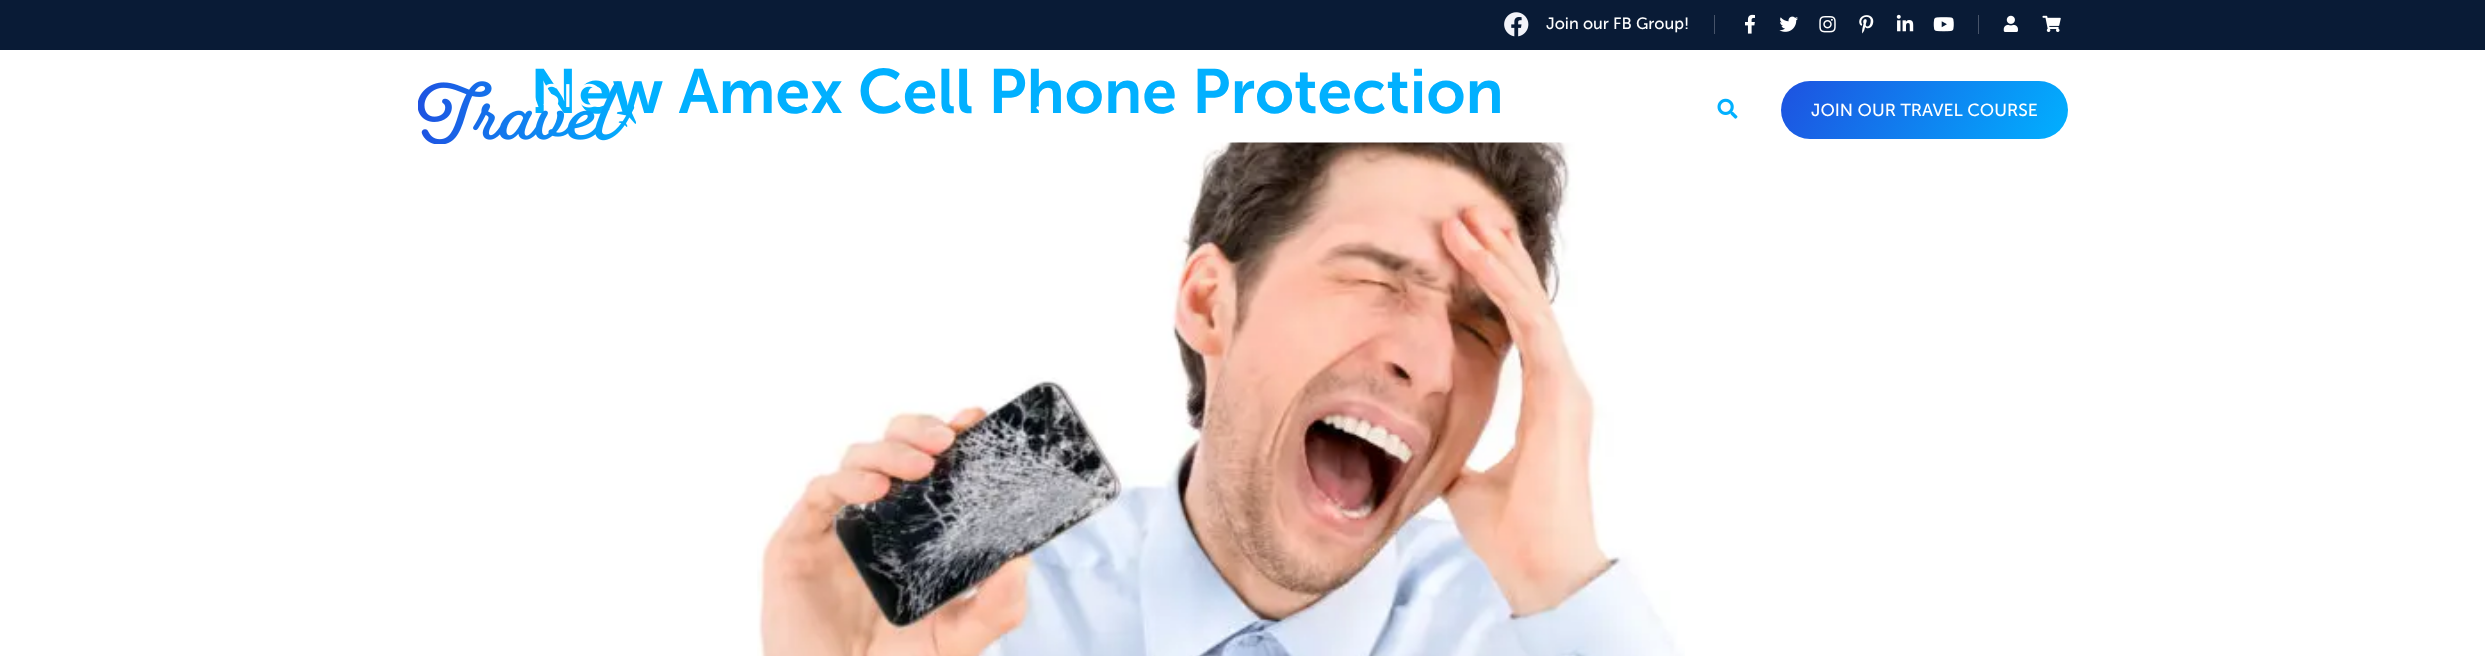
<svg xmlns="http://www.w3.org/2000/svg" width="2485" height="656">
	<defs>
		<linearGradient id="g1" gradientUnits="userSpaceOnUse" x1="1805" y1="41" x2="2044" y2="179"><stop offset="0" stop-color="#1E52E0" /><stop offset="1" stop-color="#01B0FF" /></linearGradient>
	</defs>
	<rect width="100%" height="100%" fill="#FFFFFF" />
	<text x="530" y="113" font-family="'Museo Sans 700'" font-size="62.5" font-weight="600" fill="#01B0FF">New Amex Cell Phone Protection</text>
	<image x="757" y="142" width="928" height="514" href="assets/img1.png" />
	<rect x="0" y="0" width="2485" height="50" fill="#091B36" />
	<image x="1504" y="12" width="25" height="25" href="assets/img2.png" />
	<text x="1546" y="29" font-family="'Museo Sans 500'" font-size="16.25" fill="#FFFFFF">Join our FB Group!</text>
	<rect x="1978" y="15" width="1" height="19" fill="#465369" />
	<rect x="1714" y="15" width="1" height="19" fill="#465369" />
	<image x="1745" y="14" width="10" height="20" href="assets/img3.png" />
	<image x="1779" y="16" width="19" height="16" href="assets/img4.png" />
	<image x="1819" y="16" width="17" height="17" href="assets/img5.png" />
	<image x="1859" y="15" width="15" height="19" href="assets/img6.png" />
	<image x="1896" y="14" width="18" height="18" href="assets/img7.png" />
	<image x="1933" y="17" width="21" height="15" href="assets/img8.png" />
	<image x="2003" y="15" width="15" height="17" href="assets/img9.png" />
	<image x="2042" y="15" width="19" height="17" href="assets/img10.png" />
	<image x="418" y="81" width="218" height="63" href="assets/img11.png" />
	<image x="1036" y="106" width="3" height="5" href="assets/img12.png" />
	<image x="1717" y="98" width="21" height="21" href="assets/img13.png" />
	<rect x="1781" y="81" width="287" height="58" rx="29" fill="url(#g1)" />
	<text x="1811" y="116" font-family="'Museo Sans 500'" font-size="17.5" fill="#FFFFFF">JOIN OUR TRAVEL COURSE</text>
</svg>
